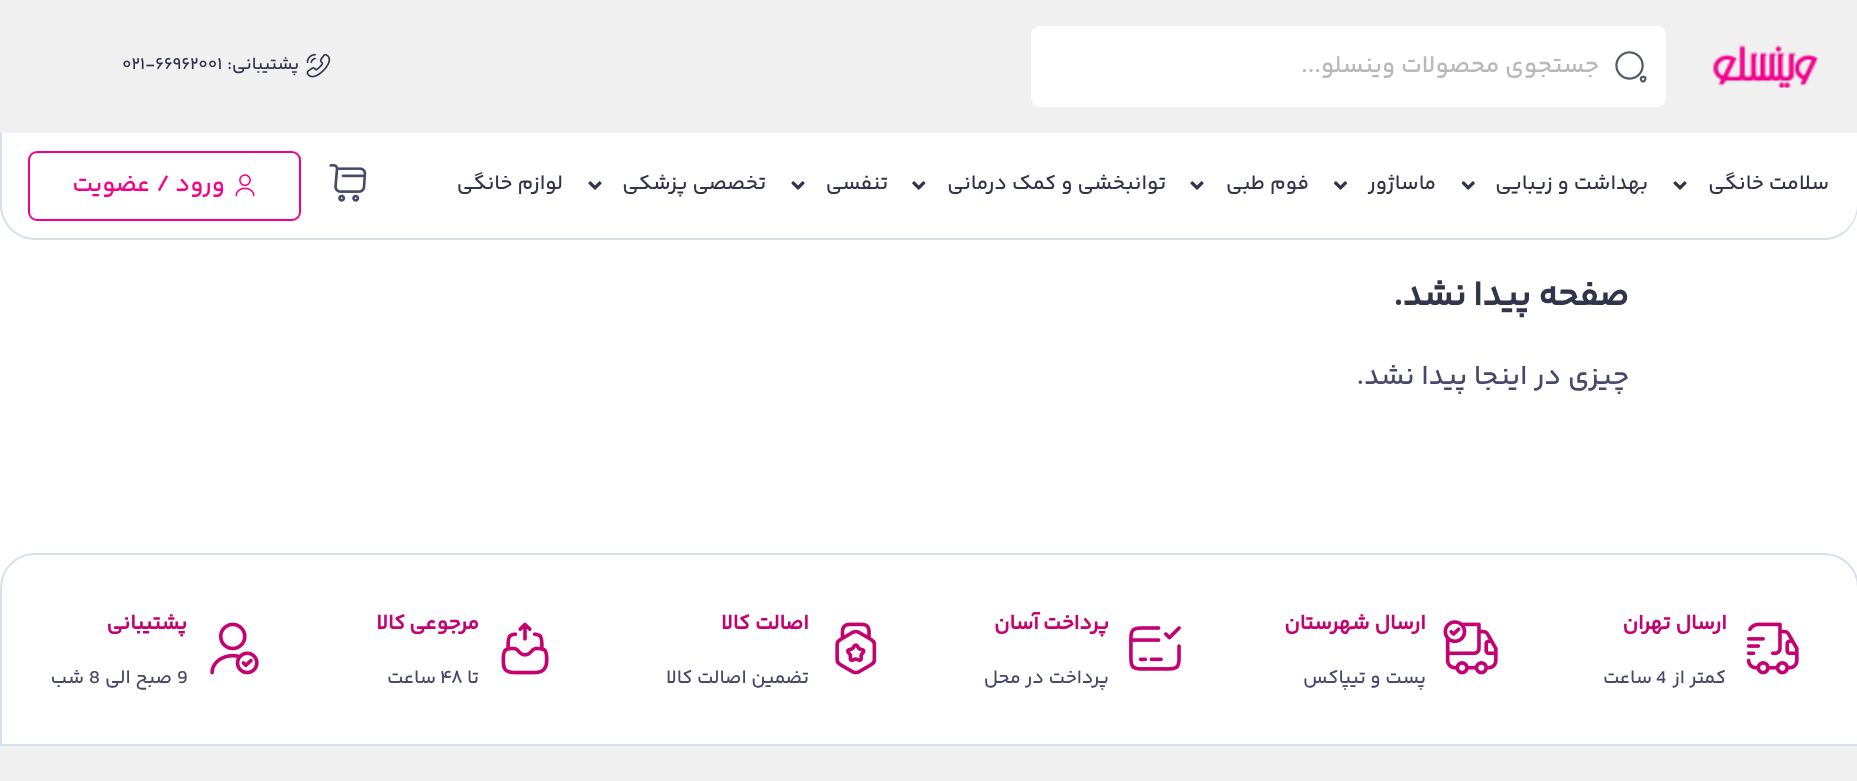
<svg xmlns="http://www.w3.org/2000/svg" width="1857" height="781">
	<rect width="100%" height="100%" fill="#FFFFFF" />
	<rect x="0" y="0" width="1857" height="133" fill="#F0F0F1" />
	<image x="1712" y="45" width="107" height="43" href="assets/img1.png" />
	<rect x="1031" y="26" width="635" height="81" rx="9" fill="#FFFFFF" />
	<image x="1615" y="51" width="32" height="32" href="assets/img2.png" />
	<text x="1599" y="72" font-family="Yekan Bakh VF" font-size="24.5" direction="rtl" fill="#B9B9B9">جستجوی محصولات وینسلو...</text>
	<image x="306" y="53" width="25" height="25" href="assets/img3.png" />
	<text x="299" y="69" font-family="Yekan Bakh VF" font-size="17.5" direction="rtl" fill="#32344B">پشتیبانی:</text>
	<text x="155" y="69" font-family="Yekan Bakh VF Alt" font-size="17.5" fill="#32344B">66962001</text>
	<text x="145" y="69" font-family="Yekan Bakh VF" font-size="17.5" fill="#32344B">-</text>
	<text x="122" y="69" font-family="Yekan Bakh VF Alt" font-size="17.5" fill="#32344B">021</text>
	<path d="M0 133H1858V205C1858 224 1843 240 1824 240H35C16 240 0 224 0 205ZM2 133H1857V205C1857 223 1842 238 1824 238H35C17 238 2 223 2 205Z" fill="#D5E0EC" fill-rule="evenodd" />
	<text x="1829" y="189" font-family="Yekan Bakh VF" font-size="21" direction="rtl" fill="#32344B">سلامت خانگی</text>
	<image x="1673" y="181" width="14" height="9" href="assets/img4.png" />
	<text x="1648" y="189" font-family="Yekan Bakh VF" font-size="21" direction="rtl" fill="#32344B">بهداشت و زیبایی</text>
	<image x="1461" y="181" width="14" height="9" href="assets/img5.png" />
	<text x="1436" y="189" font-family="Yekan Bakh VF" font-size="21" direction="rtl" fill="#32344B">ماساژور</text>
	<image x="1334" y="181" width="13" height="9" href="assets/img6.png" />
	<text x="1309" y="189" font-family="Yekan Bakh VF" font-size="21" direction="rtl" fill="#32344B">فوم طبی</text>
	<image x="1190" y="181" width="14" height="9" href="assets/img4.png" />
	<text x="1166" y="189" font-family="Yekan Bakh VF" font-size="21" direction="rtl" fill="#32344B">توانبخشی و کمک درمانی</text>
	<image x="912" y="181" width="14" height="9" href="assets/img7.png" />
	<text x="888" y="189" font-family="Yekan Bakh VF" font-size="21" direction="rtl" fill="#32344B">تنفسی</text>
	<image x="791" y="181" width="14" height="9" href="assets/img4.png" />
	<text x="766" y="189" font-family="Yekan Bakh VF" font-size="21" direction="rtl" fill="#32344B">تخصصی پزشکی</text>
	<image x="588" y="181" width="14" height="9" href="assets/img4.png" />
	<text x="563" y="189" font-family="Yekan Bakh VF" font-size="21" direction="rtl" fill="#32344B">لوازم خانگی</text>
	<image x="329" y="164" width="38" height="38" href="assets/img8.png" />
	<rect x="29" y="152" width="271" height="68" rx="8" fill="none" stroke="#F2008A" stroke-width="2" />
	<image x="235" y="174" width="20" height="23" href="assets/img9.png" />
	<text x="225" y="191" font-family="Yekan Bakh VF" font-size="24.5" direction="rtl" fill="#F2008A">ورود / عضویت</text>
	<text x="1629" y="305" word-spacing="-1" font-family="Yekan Bakh VF" font-size="35" font-weight="700" direction="rtl" fill="#32344B">صفحه پیدا نشد.</text>
	<text x="1629" y="384" font-family="Yekan Bakh VF" font-size="28" direction="rtl" fill="#47496B">چیزی در اینجا پیدا نشد.</text>
	<path d="M35 554H1824C1843 554 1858 569 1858 588V745H1V588C1 569 16 554 35 554Z" fill="none" stroke="#D5E0EC" stroke-width="2" />
	<image x="1746" y="622" width="53" height="53" href="assets/img10.png" />
	<text x="1727" y="629" font-family="Yekan Bakh VF" font-size="21" font-weight="700" direction="rtl" fill="#C50070">ارسال تهران</text>
	<text x="1726" y="683" font-family="Yekan Bakh VF" font-size="19.25" direction="rtl" fill="#47496B">کمتر از</text>
	<text x="1656" y="683" font-family="Yekan Bakh VF" font-size="19.25" fill="#47496B">4</text>
	<text x="1652" y="683" font-family="Yekan Bakh VF" font-size="19.25" direction="rtl" fill="#47496B">ساعت</text>
	<image x="1443" y="620" width="55" height="55" href="assets/img11.png" />
	<text x="1426" y="629" font-family="Yekan Bakh VF" font-size="21" font-weight="700" direction="rtl" fill="#C50070">ارسال شهرستان</text>
	<text x="1426" y="683" font-family="Yekan Bakh VF" font-size="19.25" direction="rtl" fill="#47496B">پست و تیپاکس</text>
	<image x="1129" y="626" width="52" height="45" href="assets/img12.png" />
	<text x="1109" y="629" word-spacing="-1" font-family="Yekan Bakh VF" font-size="21" font-weight="700" direction="rtl" fill="#C50070">پرداخت آسان</text>
	<text x="1109" y="683" font-family="Yekan Bakh VF" font-size="19.25" direction="rtl" fill="#47496B">پرداخت در محل</text>
	<image x="835" y="622" width="42" height="53" href="assets/img13.png" />
	<text x="809" y="629" font-family="Yekan Bakh VF" font-size="21" font-weight="700" direction="rtl" fill="#C50070">اصالت کالا</text>
	<text x="809" y="683" font-family="Yekan Bakh VF" font-size="19.25" direction="rtl" fill="#47496B">تضمین اصالت کالا</text>
	<image x="501" y="622" width="48" height="53" href="assets/img14.png" />
	<text x="479" y="629" word-spacing="-1" font-family="Yekan Bakh VF" font-size="21" font-weight="700" direction="rtl" fill="#C50070">مرجوعی کالا</text>
	<text x="479" y="683" font-family="Yekan Bakh VF" font-size="19.25" direction="rtl" fill="#47496B">تا</text>
	<text x="440" y="683" font-family="Yekan Bakh VF Alt" font-size="19.25" fill="#47496B">48</text>
	<text x="436" y="683" font-family="Yekan Bakh VF" font-size="19.25" direction="rtl" fill="#47496B">ساعت</text>
	<image x="210" y="622" width="49" height="53" href="assets/img15.png" />
	<text x="187" y="629" font-family="Yekan Bakh VF" font-size="21" font-weight="700" direction="rtl" fill="#C50070">پشتیبانی</text>
	<text x="177" y="683" font-family="Yekan Bakh VF" font-size="19.25" fill="#47496B">9</text>
	<text x="172" y="683" font-family="Yekan Bakh VF" font-size="19.25" direction="rtl" fill="#47496B">صبح الی</text>
	<text x="89" y="683" font-family="Yekan Bakh VF" font-size="19.25" fill="#47496B">8</text>
	<text x="84" y="683" font-family="Yekan Bakh VF" font-size="19.25" direction="rtl" fill="#47496B">شب</text>
	<rect x="0" y="746" width="1857" height="35" fill="#F0F0F1" />
</svg>
